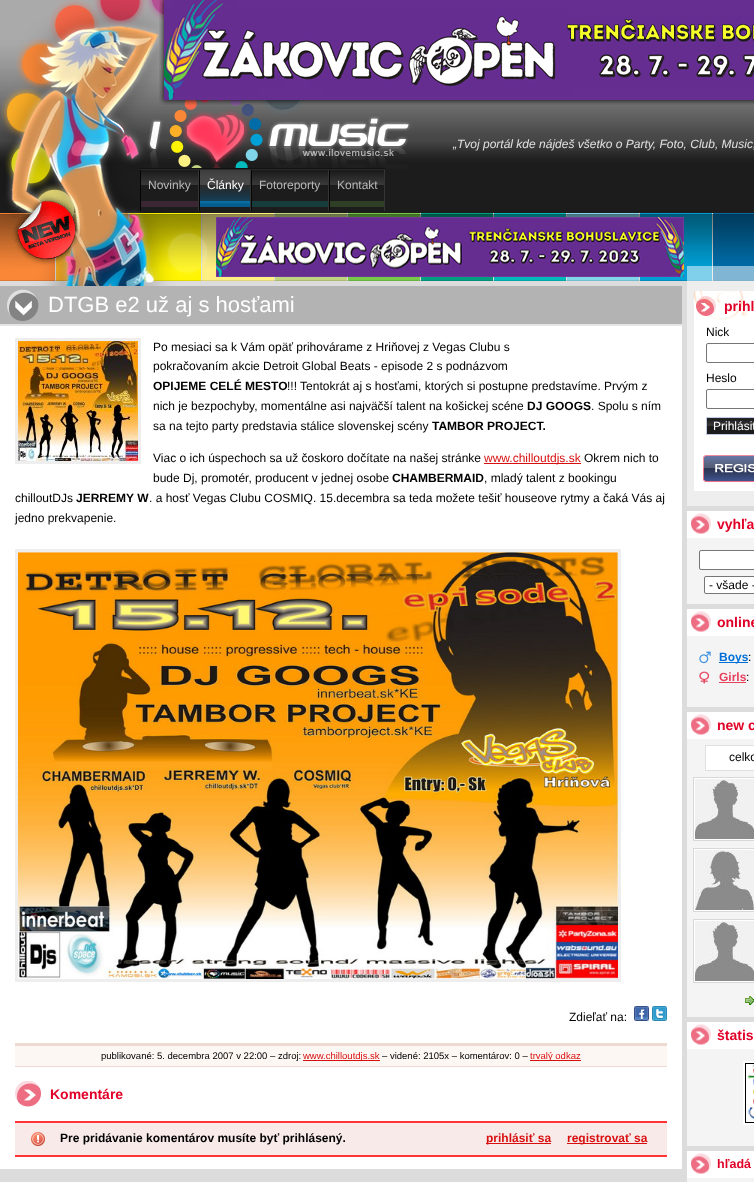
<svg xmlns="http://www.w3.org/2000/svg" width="754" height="1182">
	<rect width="100%" height="100%" fill="#DCDCDC" />
	<image x="0" y="0" width="754" height="323" href="assets/img1.png" />
	<image x="159" y="0" width="595" height="105" href="assets/img2.png" />
	<image x="164" y="0" width="590" height="100" href="assets/img3.png" />
	<text x="453" y="148" font-family="Liberation Sans" font-size="12" font-style="italic" fill="#E1E1E1">„Tvoj portál kde nájdeš všetko o Party, Foto, Club, Music,</text>
	<image x="140" y="168" width="59" height="2" href="assets/img4.png" />
	<image x="141" y="170" width="57" height="41" href="assets/img5.png" />
	<rect x="198" y="170" width="1" height="41" fill="#353535" />
	<rect x="140" y="170" width="1" height="41" fill="#040404" />
	<text x="148" y="189" font-family="Liberation Sans" font-size="12" fill="#B9B9B9">Novinky</text>
	<image x="199" y="168" width="52" height="2" href="assets/img6.png" />
	<image x="200" y="170" width="50" height="41" href="assets/img7.png" />
	<rect x="250" y="170" width="1" height="41" fill="#353535" />
	<rect x="199" y="170" width="1" height="41" fill="#040404" />
	<text x="207" y="189" font-family="Liberation Sans" font-size="12" fill="#FFFFFF">Články</text>
	<image x="251" y="168" width="78" height="2" href="assets/img8.png" />
	<image x="252" y="170" width="76" height="41" href="assets/img9.png" />
	<rect x="328" y="170" width="1" height="41" fill="#353535" />
	<rect x="251" y="170" width="1" height="41" fill="#040404" />
	<text x="259" y="189" font-family="Liberation Sans" font-size="12" fill="#B9B9B9">Fotoreporty</text>
	<image x="329" y="168" width="56" height="2" href="assets/img10.png" />
	<image x="330" y="170" width="54" height="41" href="assets/img11.png" />
	<rect x="384" y="170" width="1" height="41" fill="#353535" />
	<rect x="329" y="170" width="1" height="41" fill="#040404" />
	<text x="337" y="189" font-family="Liberation Sans" font-size="12" fill="#B9B9B9">Kontakt</text>
	<image x="11" y="194" width="72" height="72" href="assets/img12.png" />
	<image x="216" y="217" width="468" height="60" href="assets/img13.png" />
	<rect x="0" y="326" width="682" height="843" fill="#FFFFFF" />
	<rect x="0" y="286" width="682" height="38" fill="#B3B3B3" />
	<image x="7" y="289" width="32" height="32" href="assets/img14.png" />
	<rect x="0" y="324" width="682" height="2" fill="#E5E5E5" />
	<text x="48" y="312" font-family="Liberation Sans" font-size="22" fill="#FFFFFF">DTGB e2 už aj s hosťami</text>
	<rect x="16.5" y="339.5" width="123" height="123" fill="none" stroke="#EEEEEE" stroke-width="3" />
	<image x="18" y="341" width="120" height="120" href="assets/img15.png" />
	<g font-family="Liberation Sans" font-size="12" fill="#000000">
		<text x="153" y="351">Po mesiaci sa k Vám opäť prihovárame z Hriňovej z Vegas Clubu s</text>
		<text x="153" y="370">pokračovaním akcie Detroit Global Beats - episode 2 s podnázvom</text>
	</g>
	<text x="153" y="390" font-family="Liberation Sans" font-size="12" font-weight="700" fill="#000000">OPIJEME CELÉ MESTO</text>
	<g font-family="Liberation Sans" font-size="12" fill="#000000">
		<text x="287" y="390">!!! Tentokrát aj s hosťami, ktorých si postupne predstavíme. Prvým z</text>
		<text x="153" y="410">nich je bezpochyby, momentálne asi najväčší talent na košickej scéne</text>
	</g>
	<text x="527" y="410" font-family="Liberation Sans" font-size="12" font-weight="700" fill="#000000">DJ GOOGS</text>
	<g font-family="Liberation Sans" font-size="12" fill="#000000">
		<text x="591" y="410">. Spolu s ním</text>
		<text x="153" y="430">sa na tejto party predstavia stálice slovenskej scény</text>
	</g>
	<text x="432" y="430" font-family="Liberation Sans" font-size="12" font-weight="700" fill="#000000">TAMBOR PROJECT.</text>
	<text x="153" y="462" font-family="Liberation Sans" font-size="12" fill="#000000">Viac o ich úspechoch sa už čoskoro dočítate na našej stránke</text>
	<rect x="484" y="463" width="97" height="1" fill="#D80F0F" />
	<text x="484" y="462" font-family="Liberation Sans" font-size="12" fill="#D80F0F">www.chilloutdjs.sk</text>
	<g font-family="Liberation Sans" font-size="12" fill="#000000">
		<text x="584" y="462">Okrem nich to</text>
		<text x="153" y="482">bude Dj, promotér, producent v jednej osobe</text>
	</g>
	<text x="392" y="482" font-family="Liberation Sans" font-size="12" font-weight="700" fill="#000000">CHAMBERMAID</text>
	<g font-family="Liberation Sans" font-size="12" fill="#000000">
		<text x="484" y="482">, mladý talent z bookingu</text>
		<text x="15" y="502">chilloutDJs</text>
	</g>
	<text x="76" y="502" font-family="Liberation Sans" font-size="12" font-weight="700" fill="#000000">JERREMY W</text>
	<g font-family="Liberation Sans" font-size="12" fill="#000000">
		<text x="149" y="502">. a hosť Vegas Clubu COSMIQ. 15.decembra sa teda možete tešiť houseove rytmy a čaká Vás aj</text>
		<text x="15" y="522">jedno prekvapenie.</text>
	</g>
	<rect x="16.5" y="550.5" width="603" height="430" fill="none" stroke="#EEEEEE" stroke-width="3" />
	<image x="18" y="552" width="600" height="427" href="assets/img16.png" />
	<text x="569" y="1021" font-family="Liberation Sans" font-size="12" fill="#000000">Zdieľať na:</text>
	<image x="634" y="1006" width="15" height="15" href="assets/img17.png" />
	<image x="652" y="1006" width="15" height="15" href="assets/img18.png" />
	<rect x="15" y="1046" width="652" height="20" fill="#FDF7F3" />
	<rect x="15" y="1043" width="652" height="3" fill="#EDDAD0" />
	<rect x="15" y="1066" width="652" height="1" fill="#EDDAD0" />
	<text x="101" y="1059" font-family="Liberation Sans" font-size="9.5" fill="#000000">publikované: 5. decembra 2007 v 22:00 – zdroj:</text>
	<rect x="303" y="1060" width="77" height="1" fill="#D80F0F" />
	<text x="303" y="1059" font-family="Liberation Sans" font-size="9.5" fill="#D80F0F">www.chilloutdjs.sk</text>
	<text x="382" y="1059" font-family="Liberation Sans" font-size="9.5" fill="#000000">– videné: 2105x – komentárov: 0 –</text>
	<rect x="530" y="1060" width="51" height="1" fill="#D80F0F" />
	<text x="530" y="1059" font-family="Liberation Sans" font-size="9.5" fill="#D80F0F">trvalý odkaz</text>
	<image x="15" y="1081" width="26" height="26" href="assets/img19.png" />
	<text x="50" y="1099" font-family="Liberation Sans" font-size="14" font-weight="700" fill="#E10027">Komentáre</text>
	<rect x="15" y="1123" width="652" height="32" fill="#F9EAEA" />
	<image x="31" y="1132" width="14" height="14" href="assets/img20.png" />
	<rect x="15" y="1121" width="652" height="2" fill="#FF3535" />
	<rect x="15" y="1155" width="652" height="2" fill="#FF3535" />
	<text x="60" y="1142" font-family="Liberation Sans" font-size="12" font-weight="700" fill="#000000">Pre pridávanie komentárov musíte byť prihlásený.</text>
	<rect x="486" y="1143" width="65" height="1" fill="#D80F0F" />
	<text x="486" y="1142" font-family="Liberation Sans" font-size="12" font-weight="700" fill="#D80F0F">prihlásiť sa</text>
	<rect x="567" y="1143" width="80" height="1" fill="#D80F0F" />
	<text x="567" y="1142" font-family="Liberation Sans" font-size="12" font-weight="700" fill="#D80F0F">registrovať sa</text>
	<rect x="687" y="266" width="67" height="240" fill="#FFFFFF" fill-opacity="0.5" />
	<rect x="694" y="320" width="60" height="171" fill="#FFFFFF" />
	<image x="694" y="291" width="60" height="29" href="assets/img21.png" />
	<text x="724" y="311" font-family="Liberation Sans" font-size="14" font-weight="700" fill="#E10027">prihl</text>
	<text x="706" y="336" font-family="Liberation Sans" font-size="12" fill="#000000">Nick</text>
	<rect x="706.5" y="343.5" width="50" height="19" rx="1.5" fill="none" stroke="#767676" />
	<text x="706" y="382" font-family="Liberation Sans" font-size="12" fill="#000000">Heslo</text>
	<rect x="706.5" y="389.5" width="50" height="19" rx="1.5" fill="none" stroke="#767676" />
	<rect x="707" y="426" width="47" height="8" fill="#1C1C1C" />
	<image x="707" y="418" width="47" height="8" href="assets/img22.png" />
	<rect x="706.5" y="417.5" width="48" height="17" fill="none" stroke="#C2CBE5" />
	<text x="713" y="430" font-family="Liberation Sans" font-size="12" fill="#FFFFFF">Prihlásiť</text>
	<image x="703" y="455" width="51" height="27" href="assets/img23.png" />
	<rect x="687" y="538" width="67" height="66" fill="#F4F4F4" />
	<rect x="687" y="511" width="67" height="27" fill="#FFFFFF" />
	<image x="691" y="513" width="20" height="21" href="assets/img24.png" />
	<text x="717" y="529" font-family="Liberation Sans" font-size="14" font-weight="700" fill="#E10027">vyhľa</text>
	<rect x="699.5" y="550.5" width="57" height="19" rx="1.5" fill="#FFFFFF" stroke="#767676" />
	<rect x="704.5" y="576.5" width="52" height="17" rx="1.5" fill="#FFFFFF" stroke="#767676" />
	<text x="709" y="589" font-family="Liberation Sans" font-size="12" fill="#000000">- všade -</text>
	<rect x="687" y="636" width="67" height="71" fill="#F4F4F4" />
	<rect x="687" y="609" width="67" height="27" fill="#FFFFFF" />
	<image x="691" y="611" width="20" height="21" href="assets/img24.png" />
	<text x="717" y="627" font-family="Liberation Sans" font-size="14" font-weight="700" fill="#E10027">online</text>
	<image x="699" y="651" width="12" height="13" href="assets/img25.png" />
	<rect x="719" y="662" width="29" height="1" fill="#0070D9" />
	<text x="719" y="661" font-family="Liberation Sans" font-size="12" font-weight="700" fill="#0070D9">Boys</text>
	<text x="748" y="661" font-family="Liberation Sans" font-size="12" fill="#000000">:</text>
	<image x="699" y="671" width="11" height="13" href="assets/img26.png" />
	<text x="719" y="681" font-family="Liberation Sans" font-size="12" font-weight="700" fill="#E6415E">Girls</text>
	<rect x="719" y="682" width="27" height="1" fill="#E6415E" />
	<text x="746" y="681" font-family="Liberation Sans" font-size="12" fill="#000000">:</text>
	<rect x="687" y="739" width="67" height="278" fill="#F4F4F4" />
	<rect x="687" y="712" width="67" height="27" fill="#FFFFFF" />
	<image x="691" y="714" width="20" height="21" href="assets/img24.png" />
	<text x="717" y="730" font-family="Liberation Sans" font-size="14" font-weight="700" fill="#E10027">new c</text>
	<rect x="705.5" y="745.5" width="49" height="25" fill="#FFFFFF" stroke="#E0E0E0" />
	<text x="729" y="761" font-family="Liberation Sans" font-size="12" fill="#000000">celko</text>
	<rect x="693.5" y="777.5" width="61" height="63" fill="#FFFFFF" stroke="#D8D8D8" />
	<image x="695" y="779" width="59" height="60" href="assets/img27.png" />
	<rect x="693.5" y="848.5" width="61" height="63" fill="#FFFFFF" stroke="#D8D8D8" />
	<image x="695" y="850" width="59" height="60" href="assets/img28.png" />
	<rect x="693.5" y="919.5" width="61" height="63" fill="#FFFFFF" stroke="#D8D8D8" />
	<image x="695" y="921" width="59" height="60" href="assets/img27.png" />
	<image x="745" y="996" width="9" height="10" href="assets/img29.png" />
	<rect x="687" y="1049" width="67" height="97" fill="#F4F4F4" />
	<rect x="687" y="1022" width="67" height="27" fill="#FFFFFF" />
	<image x="691" y="1024" width="20" height="21" href="assets/img24.png" />
	<text x="717" y="1040" font-family="Liberation Sans" font-size="14" font-weight="700" fill="#E10027">štatis</text>
	<rect x="743" y="1061" width="11" height="64" fill="#FFFFFF" />
	<image x="745" y="1063" width="9" height="60" href="assets/img30.png" />
	<rect x="687" y="1178" width="67" height="4" fill="#F4F4F4" />
	<rect x="687" y="1151" width="67" height="27" fill="#FFFFFF" />
	<image x="691" y="1153" width="20" height="21" href="assets/img24.png" />
	<text x="717" y="1168" font-family="Liberation Sans" font-size="12.5" font-weight="700" fill="#E10027">hľadá</text>
</svg>
